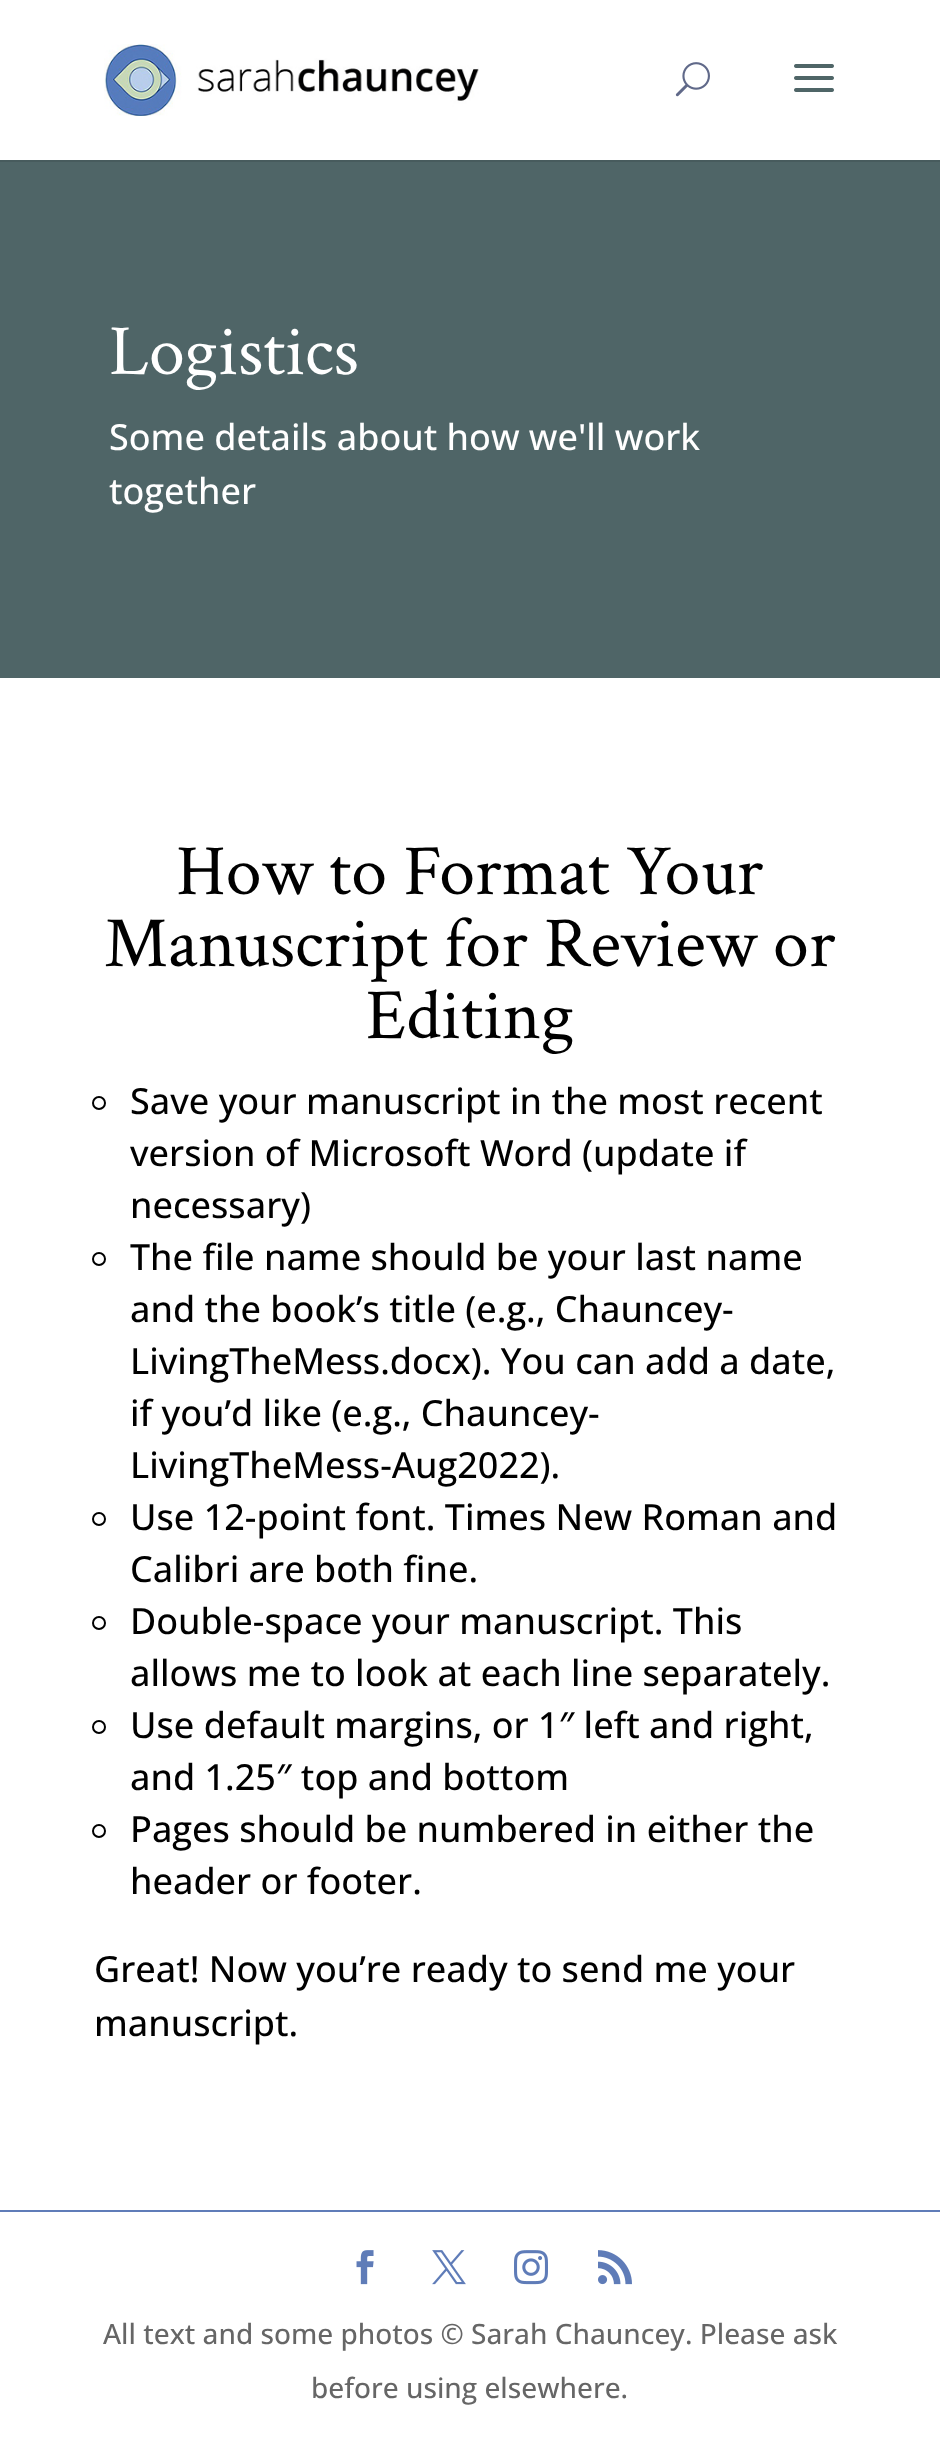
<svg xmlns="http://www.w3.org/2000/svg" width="940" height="2443">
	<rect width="100%" height="100%" fill="#FFFFFF" />
	<rect x="0" y="160" width="940" height="2" fill="#475B5D" />
	<image x="104" y="44" width="375" height="72" href="assets/img1.png" />
	<image x="675" y="62" width="35" height="35" href="assets/img2.png" />
	<image x="794" y="64" width="40" height="28" href="assets/img3.png" />
	<rect x="0" y="162" width="940" height="516" fill="#4F6567" />
	<text x="109" y="374" font-family="Crimson Text" font-size="72" fill="#FFFFFF">Logistics</text>
	<g font-family="Open Sans" font-size="36" font-weight="500" fill="#FFFFFF">
		<text x="109" y="450">Some details about how we'll work</text>
		<text x="109" y="504">together</text>
	</g>
	<g font-family="Crimson Text" font-size="72" fill="#000000">
		<text x="176" y="894">How to Format Your</text>
		<text x="104" y="966">Manuscript for Review or</text>
		<text x="366" y="1038">Editing</text>
	</g>
	<circle cx="99" cy="1103" r="6" fill="none" stroke="#000000" stroke-width="2" />
	<g font-family="Open Sans" font-size="36" font-weight="500" fill="#000000">
		<text x="130" y="1114">Save your manuscript in the most recent</text>
		<text x="130" y="1166">version of Microsoft Word (update if</text>
		<text x="130" y="1218">necessary)</text>
	</g>
	<circle cx="99" cy="1259" r="6" fill="none" stroke="#000000" stroke-width="2" />
	<g font-family="Open Sans" font-size="36" font-weight="500" fill="#000000">
		<text x="130" y="1270">The file name should be your last name</text>
		<text x="130" y="1322">and the book’s title (e.g., Chauncey-</text>
		<text x="130" y="1374">LivingTheMess.docx). You can add a date,</text>
		<text x="130" y="1426">if you’d like (e.g., Chauncey-</text>
		<text x="130" y="1478">LivingTheMess-Aug2022).</text>
	</g>
	<circle cx="99" cy="1519" r="6" fill="none" stroke="#000000" stroke-width="2" />
	<g font-family="Open Sans" font-size="36" font-weight="500" fill="#000000">
		<text x="130" y="1530">Use 12-point font. Times New Roman and</text>
		<text x="130" y="1582">Calibri are both fine.</text>
	</g>
	<circle cx="99" cy="1623" r="6" fill="none" stroke="#000000" stroke-width="2" />
	<g font-family="Open Sans" font-size="36" font-weight="500" fill="#000000">
		<text x="130" y="1634">Double-space your manuscript. This</text>
		<text x="130" y="1686">allows me to look at each line separately.</text>
	</g>
	<circle cx="99" cy="1727" r="6" fill="none" stroke="#000000" stroke-width="2" />
	<g font-family="Open Sans" font-size="36" font-weight="500" fill="#000000">
		<text x="130" y="1738">Use default margins, or 1″ left and right,</text>
		<text x="130" y="1790">and 1.25″ top and bottom</text>
	</g>
	<circle cx="99" cy="1831" r="6" fill="none" stroke="#000000" stroke-width="2" />
	<g font-family="Open Sans" font-size="36" font-weight="500" fill="#000000">
		<text x="130" y="1842">Pages should be numbered in either the</text>
		<text x="130" y="1894">header or footer.</text>
		<text x="94" y="1982">Great! Now you’re ready to send me your</text>
		<text x="94" y="2036">manuscript.</text>
	</g>
	<rect x="0" y="2210" width="940" height="2" fill="#5F7CB8" />
	<image x="356" y="2250" width="18" height="35" href="assets/img4.png" />
	<image x="432" y="2250" width="34" height="35" href="assets/img5.png" />
	<image x="514" y="2250" width="34" height="35" href="assets/img6.png" />
	<image x="598" y="2250" width="34" height="35" href="assets/img7.png" />
	<g font-family="Open Sans" font-size="28" font-weight="500" fill="#666666">
		<text x="103" y="2344">All text and some photos © Sarah Chauncey. Please ask</text>
		<text x="311" y="2398">before using elsewhere.</text>
	</g>
</svg>
